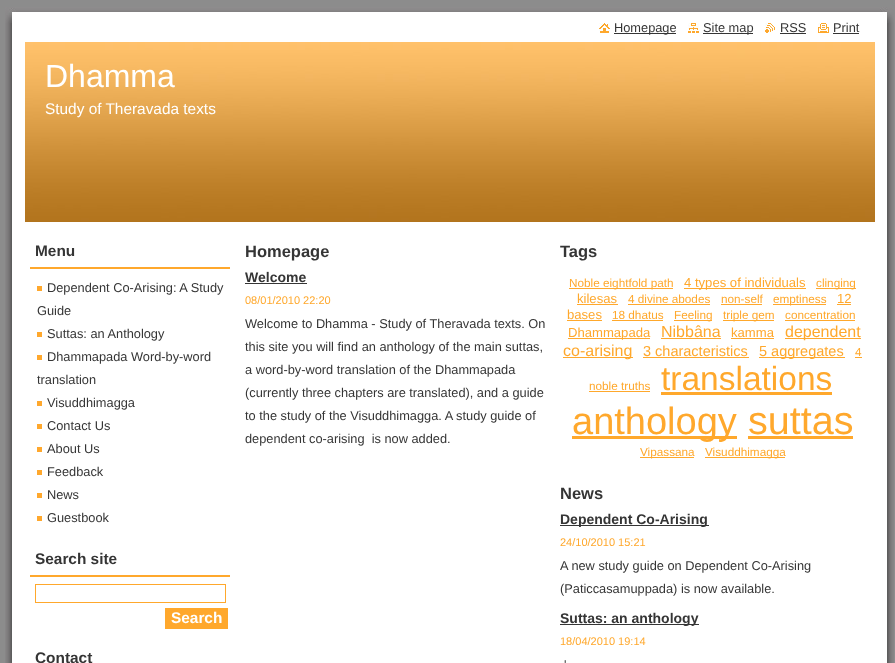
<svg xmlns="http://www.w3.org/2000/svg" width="895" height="663">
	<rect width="100%" height="100%" fill="#8C8C8C" />
	<image x="5" y="23" width="889" height="620" href="assets/img1.png" />
	<image x="5" y="7" width="889" height="16" href="assets/img2.png" />
	<image x="5" y="643" width="889" height="20" href="assets/img3.png" />
	<image x="599" y="23" width="11" height="10" href="assets/img4.png" />
	<rect x="614" y="33" width="62" height="1" fill="#353535" />
	<text x="614" y="32" font-family="Liberation Sans" font-size="12.8" fill="#353535">Homepage</text>
	<image x="688" y="23" width="11" height="10" href="assets/img5.png" />
	<rect x="703" y="33" width="50" height="1" fill="#353535" />
	<text x="703" y="32" font-family="Liberation Sans" font-size="12.8" fill="#353535">Site map</text>
	<image x="765" y="23" width="10" height="10" href="assets/img6.png" />
	<text x="780" y="32" font-family="Liberation Sans" font-size="12.8" fill="#353535">RSS</text>
	<rect x="780" y="33" width="26" height="1" fill="#353535" />
	<image x="818" y="23" width="11" height="10" href="assets/img7.png" />
	<text x="833" y="32" font-family="Liberation Sans" font-size="12.8" fill="#353535">Print</text>
	<rect x="833" y="33" width="26" height="1" fill="#353535" />
	<image x="25" y="42" width="850" height="180" href="assets/img8.png" />
	<text x="45" y="87" font-family="Liberation Sans" font-size="32" fill="#FFFFFF">Dhamma</text>
	<text x="45" y="114" font-family="Liberation Sans" font-size="15.4" fill="#FFFFFF">Study of Theravada texts</text>
	<rect x="30" y="267" width="200" height="2" fill="#FFA82C" />
	<text x="35" y="256" font-family="Liberation Sans" font-size="15.4" font-weight="700" fill="#353535">Menu</text>
	<text x="47" y="292" font-family="Liberation Sans" font-size="12.8" fill="#353535">Dependent Co-Arising: A Study</text>
	<rect x="37" y="286" width="5" height="5" fill="#FFA82D" />
	<g font-family="Liberation Sans" font-size="12.8" fill="#353535">
		<text x="37" y="315">Guide</text>
		<text x="47" y="338">Suttas: an Anthology</text>
	</g>
	<rect x="37" y="332" width="5" height="5" fill="#FFA82D" />
	<text x="47" y="361" font-family="Liberation Sans" font-size="12.8" fill="#353535">Dhammapada Word-by-word</text>
	<rect x="37" y="355" width="5" height="5" fill="#FFA82D" />
	<g font-family="Liberation Sans" font-size="12.8" fill="#353535">
		<text x="37" y="384">translation</text>
		<text x="47" y="407">Visuddhimagga</text>
	</g>
	<rect x="37" y="401" width="5" height="5" fill="#FFA82D" />
	<text x="47" y="430" font-family="Liberation Sans" font-size="12.8" fill="#353535">Contact Us</text>
	<rect x="37" y="424" width="5" height="5" fill="#FFA82D" />
	<text x="47" y="453" font-family="Liberation Sans" font-size="12.8" fill="#353535">About Us</text>
	<rect x="37" y="447" width="5" height="5" fill="#FFA82D" />
	<text x="47" y="476" font-family="Liberation Sans" font-size="12.8" fill="#353535">Feedback</text>
	<rect x="37" y="470" width="5" height="5" fill="#FFA82D" />
	<text x="47" y="499" font-family="Liberation Sans" font-size="12.8" fill="#353535">News</text>
	<rect x="37" y="493" width="5" height="5" fill="#FFA82D" />
	<text x="47" y="522" font-family="Liberation Sans" font-size="12.8" fill="#353535">Guestbook</text>
	<rect x="37" y="516" width="5" height="5" fill="#FFA82D" />
	<rect x="30" y="575" width="200" height="2" fill="#FFA82C" />
	<text x="35" y="564" font-family="Liberation Sans" font-size="15.4" font-weight="700" fill="#353535">Search site</text>
	<rect x="35.5" y="584.5" width="190" height="18" fill="none" stroke="#FFA82C" />
	<rect x="165" y="608" width="63" height="21" fill="#FFA82C" />
	<text x="171" y="623" font-family="Liberation Sans" font-size="15.4" font-weight="700" fill="#FFFFFF">Search</text>
	<text x="35" y="663" font-family="Liberation Sans" font-size="15.4" font-weight="700" fill="#353535">Contact</text>
	<text x="245" y="257" font-family="Liberation Sans" font-size="16.5" font-weight="700" fill="#353535">Homepage</text>
	<text x="245" y="282" font-family="Liberation Sans" font-size="14" font-weight="700" fill="#353535">Welcome</text>
	<rect x="245" y="283" width="62" height="1" fill="#353535" />
	<text x="245" y="304" font-family="Liberation Sans" font-size="11" fill="#FFA82C">08/01/2010 22:20</text>
	<g font-family="Liberation Sans" font-size="12.8" fill="#353535">
		<text x="245" y="328">Welcome to Dhamma - Study of Theravada texts. On</text>
		<text x="245" y="351">this site you will find an anthology of the main suttas,</text>
		<text x="245" y="374">a word-by-word translation of the Dhammapada</text>
		<text x="245" y="397">(currently three chapters are translated), and a guide</text>
		<text x="245" y="420">to the study of the Visuddhimagga. A study guide of</text>
		<text x="245" y="443" xml:space="preserve">dependent co-arising  is now added.</text>
	</g>
	<text x="560" y="257" font-family="Liberation Sans" font-size="16.5" font-weight="700" fill="#353535">Tags</text>
	<rect x="569" y="288" width="104" height="1" fill="#FFA82C" />
	<text x="569" y="287" font-family="Liberation Sans" font-size="11.75" fill="#FFA82C">Noble eightfold path</text>
	<rect x="684" y="288" width="122" height="1" fill="#FFA82C" />
	<text x="684" y="287" font-family="Liberation Sans" font-size="13.1" fill="#FFA82C">4 types of individuals</text>
	<rect x="816" y="288" width="40" height="1" fill="#FFA82C" />
	<text x="816" y="287" font-family="Liberation Sans" font-size="11.75" fill="#FFA82C">clinging</text>
	<text x="577" y="303" font-family="Liberation Sans" font-size="13.1" fill="#FFA82C">kilesas</text>
	<rect x="577" y="304" width="41" height="1" fill="#FFA82C" />
	<text x="628" y="303" font-family="Liberation Sans" font-size="11.75" fill="#FFA82C">4 divine abodes</text>
	<rect x="628" y="304" width="82" height="1" fill="#FFA82C" />
	<text x="721" y="303" font-family="Liberation Sans" font-size="11.75" fill="#FFA82C">non-self</text>
	<rect x="721" y="304" width="41" height="1" fill="#FFA82C" />
	<rect x="773" y="304" width="53" height="1" fill="#FFA82C" />
	<text x="773" y="303" font-family="Liberation Sans" font-size="11.75" fill="#FFA82C">emptiness</text>
	<text x="837" y="303" font-family="Liberation Sans" font-size="13.1" fill="#FFA82C">12</text>
	<rect x="837" y="304" width="14" height="1" fill="#FFA82C" />
	<text x="567" y="319" font-family="Liberation Sans" font-size="13.1" fill="#FFA82C">bases</text>
	<rect x="567" y="320" width="35" height="1" fill="#FFA82C" />
	<text x="612" y="319" font-family="Liberation Sans" font-size="11.75" fill="#FFA82C">18 dhatus</text>
	<rect x="612" y="320" width="51" height="1" fill="#FFA82C" />
	<rect x="674" y="320" width="38" height="1" fill="#FFA82C" />
	<text x="674" y="319" font-family="Liberation Sans" font-size="11.75" fill="#FFA82C">Feeling</text>
	<rect x="723" y="320" width="51" height="1" fill="#FFA82C" />
	<g font-family="Liberation Sans" font-size="11.75" fill="#FFA82C">
		<text x="723" y="319">triple gem</text>
		<text x="785" y="319">concentration</text>
	</g>
	<rect x="785" y="320" width="70" height="1" fill="#FFA82C" />
	<rect x="568" y="338" width="82" height="1" fill="#FFA82C" />
	<text x="568" y="337" font-family="Liberation Sans" font-size="13.1" fill="#FFA82C">Dhammapada</text>
	<text x="661" y="337" font-family="Liberation Sans" font-size="16" fill="#FFA82C">Nibbâna</text>
	<rect x="661" y="338" width="60" height="1" fill="#FFA82C" />
	<text x="731" y="337" font-family="Liberation Sans" font-size="13.1" fill="#FFA82C">kamma</text>
	<rect x="731" y="338" width="43" height="1" fill="#FFA82C" />
	<rect x="785" y="338" width="76" height="1" fill="#FFA82C" />
	<text x="785" y="337" font-family="Liberation Sans" font-size="16" fill="#FFA82C">dependent</text>
	<rect x="563" y="357" width="70" height="1" fill="#FFA82C" />
	<text x="563" y="356" font-family="Liberation Sans" font-size="16" fill="#FFA82C">co-arising</text>
	<text x="643" y="356" font-family="Liberation Sans" font-size="14.5" fill="#FFA82C">3 characteristics</text>
	<rect x="643" y="357" width="106" height="1" fill="#FFA82C" />
	<rect x="759" y="357" width="86" height="1" fill="#FFA82C" />
	<text x="759" y="356" font-family="Liberation Sans" font-size="14.5" fill="#FFA82C">5 aggregates</text>
	<text x="855" y="356" font-family="Liberation Sans" font-size="11.75" fill="#FFA82C">4</text>
	<rect x="855" y="357" width="7" height="1" fill="#FFA82C" />
	<text x="589" y="390" font-family="Liberation Sans" font-size="11.75" fill="#FFA82C">noble truths</text>
	<rect x="589" y="391" width="61" height="1" fill="#FFA82C" />
	<text x="661" y="390" font-family="Liberation Sans" font-size="33.5" fill="#FFA82C">translations</text>
	<rect x="661" y="392" width="171" height="3" fill="#FFA82C" />
	<rect x="572" y="436" width="165" height="3" fill="#FFA82C" />
	<text x="572" y="434" font-family="Liberation Sans" font-size="38" fill="#FFA82C">anthology</text>
	<text x="748" y="434" font-family="Liberation Sans" font-size="39.5" fill="#FFA82C">suttas</text>
	<rect x="748" y="436" width="105" height="3" fill="#FFA82C" />
	<rect x="640" y="457" width="54" height="1" fill="#FFA82C" />
	<text x="640" y="456" font-family="Liberation Sans" font-size="11.75" fill="#FFA82C">Vipassana</text>
	<rect x="705" y="457" width="80" height="1" fill="#FFA82C" />
	<text x="705" y="456" font-family="Liberation Sans" font-size="11.75" fill="#FFA82C">Visuddhimagga</text>
	<text x="560" y="499" font-family="Liberation Sans" font-size="16.5" font-weight="700" fill="#353535">News</text>
	<rect x="560" y="525" width="149" height="1" fill="#353535" />
	<text x="560" y="524" font-family="Liberation Sans" font-size="14" font-weight="700" fill="#353535">Dependent Co-Arising</text>
	<text x="560" y="546" font-family="Liberation Sans" font-size="11" fill="#FFA82C">24/10/2010 15:21</text>
	<g font-family="Liberation Sans" font-size="12.8" fill="#353535">
		<text x="560" y="570">A new study guide on Dependent Co-Arising</text>
		<text x="560" y="593">(Paticcasamuppada) is now available.</text>
	</g>
	<rect x="560" y="624" width="139" height="1" fill="#353535" />
	<text x="560" y="623" font-family="Liberation Sans" font-size="14" font-weight="700" fill="#353535">Suttas: an anthology</text>
	<text x="560" y="645" font-family="Liberation Sans" font-size="11" fill="#FFA82C">18/04/2010 19:14</text>
	<text x="564" y="669" font-family="Liberation Sans" font-size="12.8" fill="#353535">'</text>
</svg>
